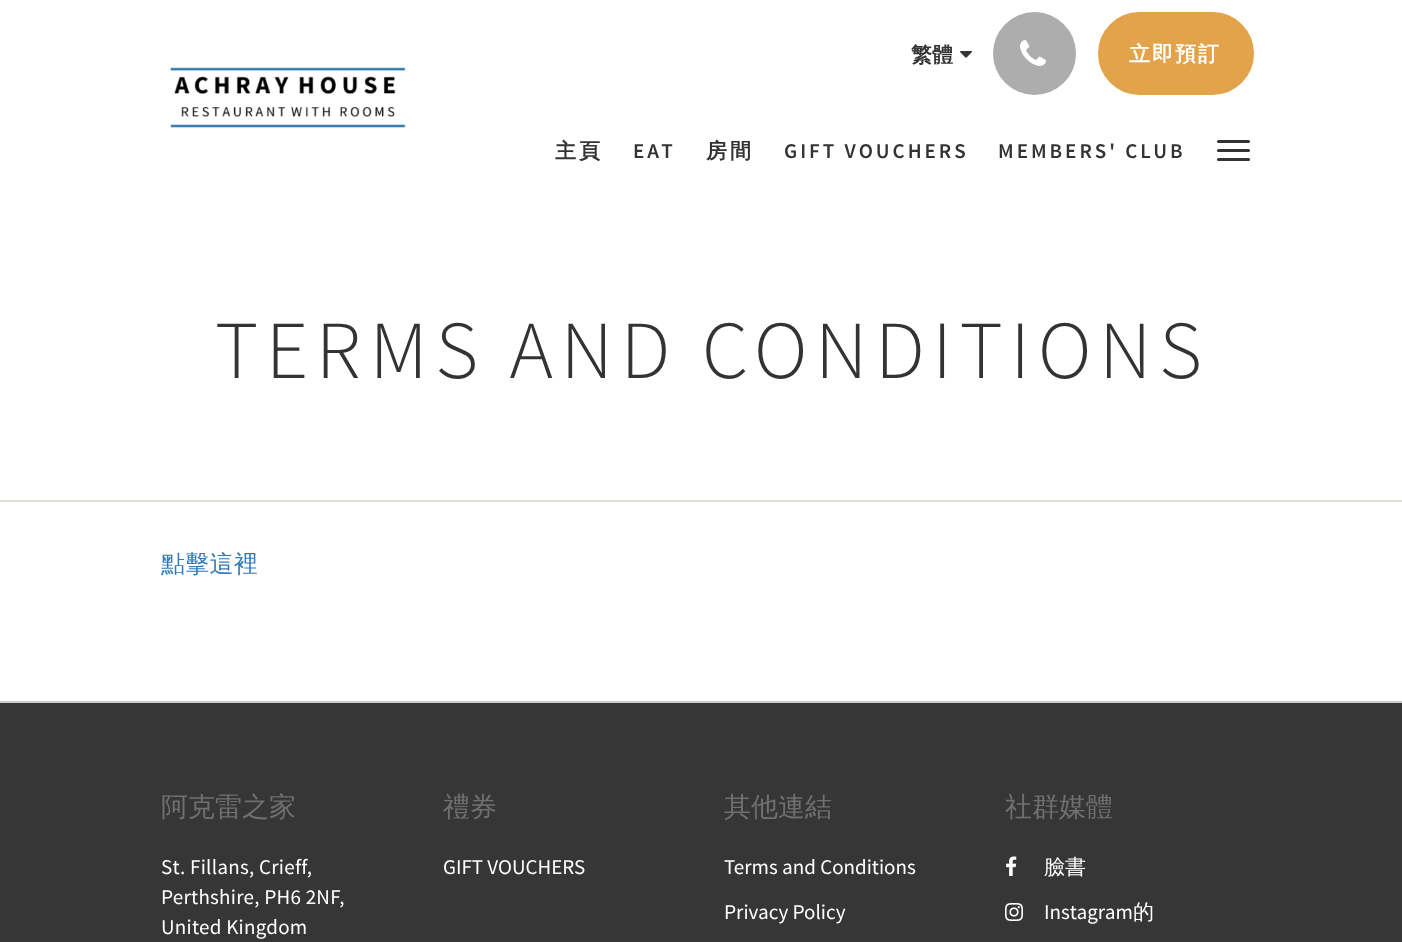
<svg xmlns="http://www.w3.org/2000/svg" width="1402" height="942">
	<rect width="100%" height="100%" fill="#FFFFFF" />
	<image x="170" y="67" width="236" height="61" href="assets/img1.png" />
	<text x="911" y="62" font-family="WenQuanYi Zen Hei" font-size="21" font-weight="700" fill="#333333">繁體</text>
	<image x="960" y="51" width="12" height="7" href="assets/img2.png" />
	<circle cx="1034.5" cy="53.5" r="41.5" fill="#ADADAD" />
	<image x="1020" y="40" width="26" height="26" href="assets/img3.png" />
	<rect x="1099" y="13" width="154" height="81" rx="40.5" fill="#E2A34B" stroke="#E2A34B" stroke-width="2" />
	<text x="1129" y="61" font-family="WenQuanYi Zen Hei" font-size="21" font-weight="700" letter-spacing="2" fill="#FFFFFF">立即預訂</text>
	<text x="555" y="158" font-family="WenQuanYi Zen Hei" font-size="21" font-weight="700" letter-spacing="3" fill="#333333">主頁</text>
	<text x="633" y="158" font-family="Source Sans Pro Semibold" font-size="21" font-weight="600" letter-spacing="3" fill="#333333">EAT</text>
	<text x="706" y="158" font-family="WenQuanYi Zen Hei" font-size="21" font-weight="700" letter-spacing="3" fill="#333333">房間</text>
	<g font-family="Source Sans Pro Semibold" font-size="21" font-weight="600" letter-spacing="3" fill="#333333">
		<text x="784" y="158">GIFT VOUCHERS</text>
		<text x="998" y="158">MEMBERS' CLUB</text>
	</g>
	<rect x="1217" y="140" width="33" height="3" rx="1.5" fill="#333333" />
	<rect x="1217" y="149" width="33" height="3" rx="1.5" fill="#333333" />
	<rect x="1217" y="158" width="33" height="3" rx="1.5" fill="#333333" />
	<rect x="0" y="500" width="1402" height="2" fill="#DFDED3" />
	<text x="215" y="378" font-family="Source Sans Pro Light" font-size="82.5" font-weight="300" letter-spacing="7.5" fill="#333333">TERMS AND CONDITIONS</text>
	<text x="161" y="572" font-family="WenQuanYi Zen Hei" font-size="24" font-weight="500" letter-spacing="0.25" fill="#337AB7">點擊這裡</text>
	<rect x="0" y="703" width="1402" height="239" fill="#363636" />
	<rect x="0" y="701" width="1402" height="2" fill="#CCCCCC" />
	<text x="161" y="816" font-family="WenQuanYi Zen Hei" font-size="27" font-weight="500" fill="#707070">阿克雷之家</text>
	<g font-family="Source Sans Pro" font-size="21" letter-spacing="0.25" fill="#FFFFFF">
		<text x="161" y="874">St. Fillans, Crieff,</text>
		<text x="161" y="904">Perthshire, PH6 2NF,</text>
		<text x="161" y="934">United Kingdom</text>
	</g>
	<text x="443" y="816" font-family="WenQuanYi Zen Hei" font-size="27" font-weight="500" fill="#707070">禮券</text>
	<text x="443" y="874" font-family="Source Sans Pro" font-size="21" fill="#FFFFFF">GIFT VOUCHERS</text>
	<text x="724" y="816" font-family="WenQuanYi Zen Hei" font-size="27" font-weight="500" fill="#707070">其他連結</text>
	<g font-family="Source Sans Pro" font-size="21" fill="#FFFFFF">
		<text x="724" y="874">Terms and Conditions</text>
		<text x="724" y="919">Privacy Policy</text>
	</g>
	<text x="1005" y="816" font-family="WenQuanYi Zen Hei" font-size="27" font-weight="500" fill="#707070">社群媒體</text>
	<image x="1006" y="856" width="11" height="20" href="assets/img4.png" />
	<text x="1044" y="874" font-family="WenQuanYi Zen Hei" font-size="21" font-weight="500" fill="#FFFFFF">臉書</text>
	<image x="1005" y="903" width="18" height="18" href="assets/img5.png" />
	<text x="1044" y="919" font-family="Source Sans Pro" font-size="21" fill="#FFFFFF">Instagram</text>
	<text x="1133" y="919" font-family="WenQuanYi Zen Hei" font-size="21" font-weight="500" fill="#FFFFFF">的</text>
</svg>
